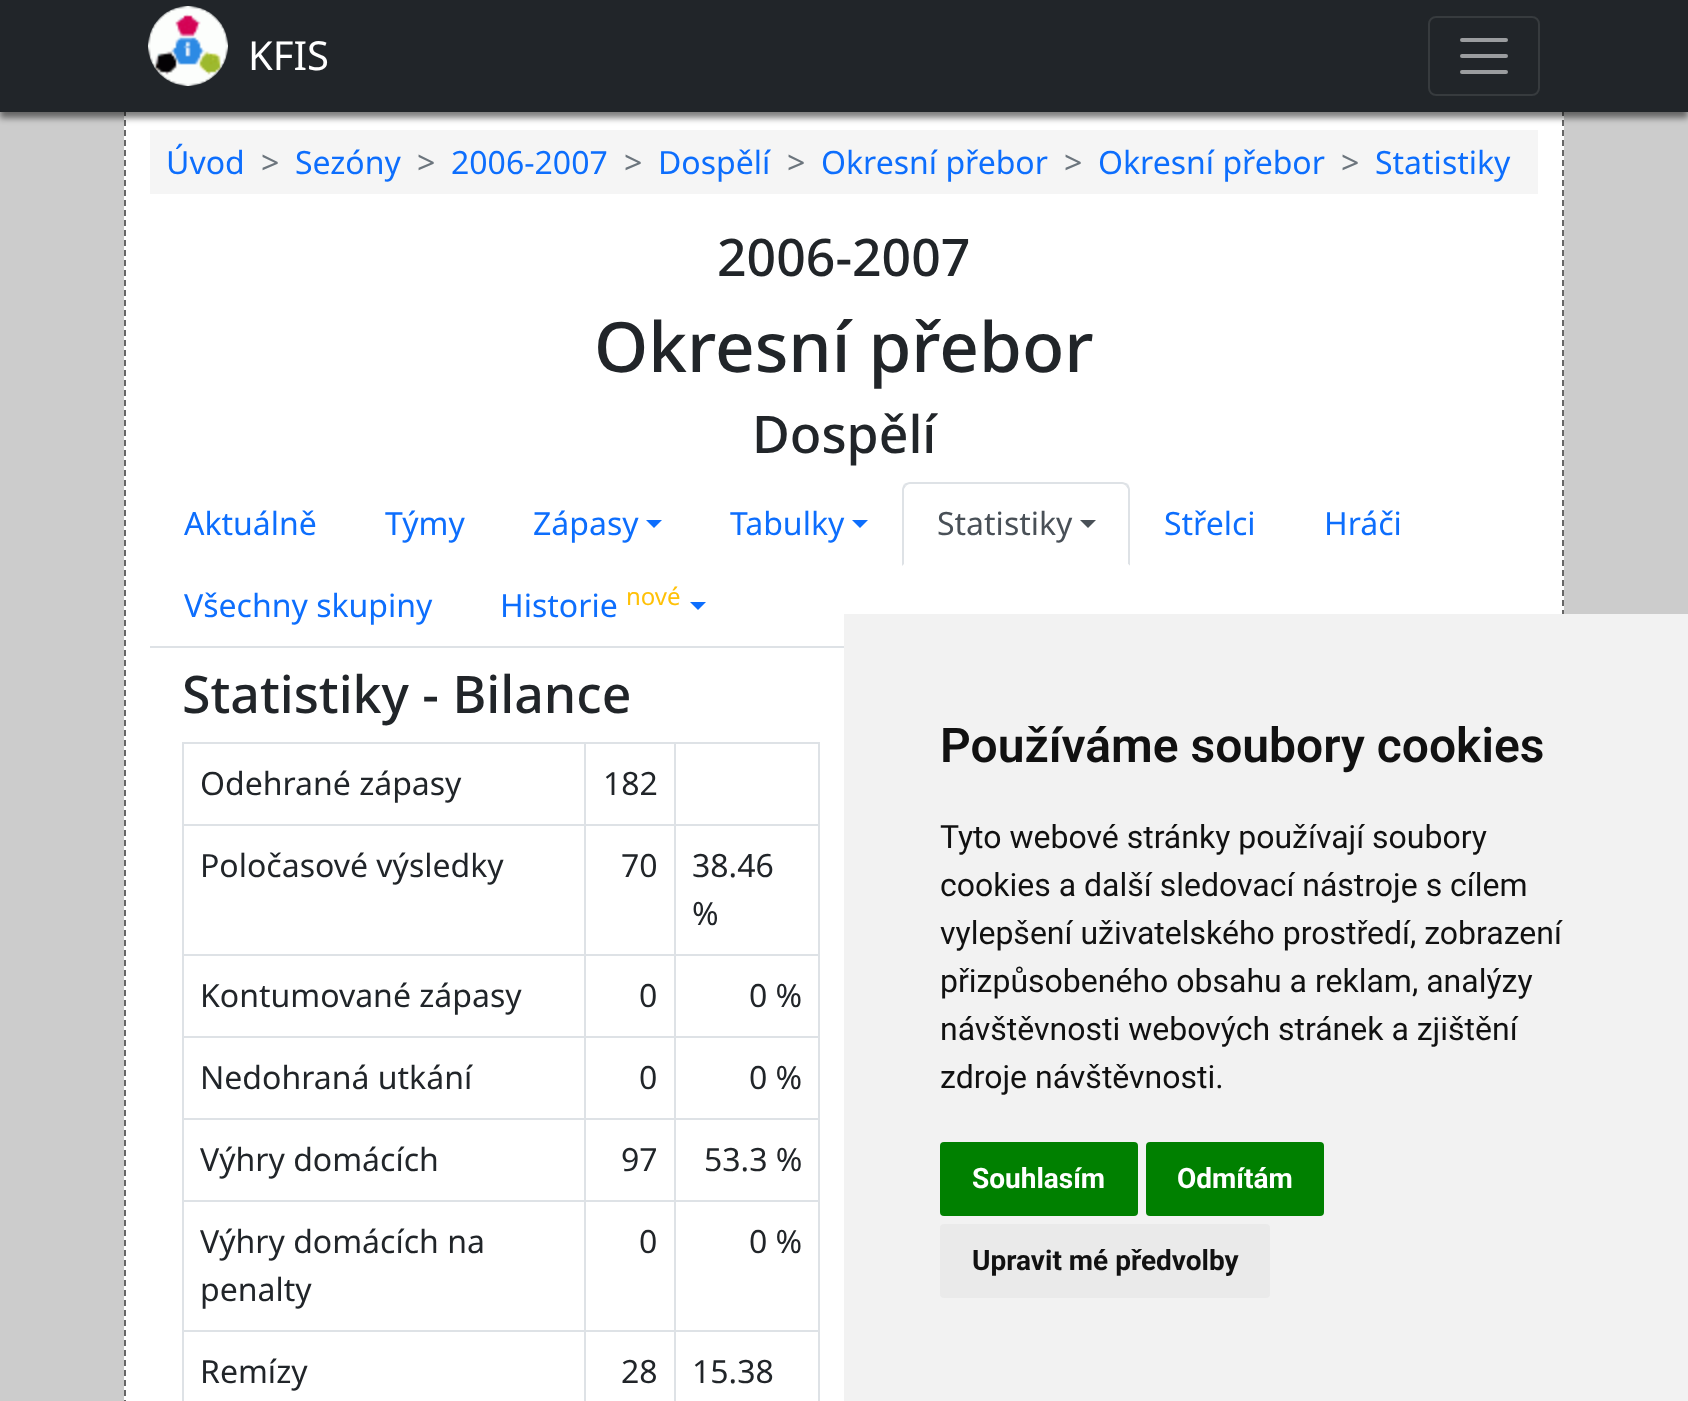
<svg xmlns="http://www.w3.org/2000/svg" width="1688" height="1401">
	<rect width="100%" height="100%" fill="#CCCCCC" />
	<rect x="124" y="112" width="1440" height="1289" fill="#FFFFFF" />
	<path d="M1563 0V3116" fill="none" stroke="#666666" stroke-width="2" stroke-dasharray="6 4" />
	<path d="M125 0V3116" fill="none" stroke="#666666" stroke-width="2" stroke-dasharray="6 4" />
	<rect x="0" y="6" width="1688" height="112" fill="#000000" fill-opacity="0.5" filter="blur(3px)" />
	<rect x="0" y="0" width="1688" height="112" fill="#212529" />
	<image x="148" y="6" width="80" height="80" href="assets/img1.png" />
	<text x="248" y="70" font-family="Noto Sans" font-size="40" fill="#FFFFFF">KFIS</text>
	<rect x="1429" y="17" width="110" height="78" rx="7" fill="none" stroke="#373B3E" stroke-width="2" />
	<path d="M1462 40H1506M1462 56H1506M1462 72H1506" fill="none" stroke="#9B9D9F" stroke-width="4" stroke-linecap="round" />
	<rect x="150" y="130" width="1388" height="64" fill="#F5F5F5" />
	<text x="166" y="174" font-family="Noto Sans" font-size="32" fill="#0D6EFD">Úvod</text>
	<text x="261" y="174" font-family="Noto Sans" font-size="32" fill="#6C757D">&gt;</text>
	<text x="295" y="174" font-family="Noto Sans" font-size="32" fill="#0D6EFD">Sezóny</text>
	<text x="417" y="174" font-family="Noto Sans" font-size="32" fill="#6C757D">&gt;</text>
	<text x="451" y="174" font-family="Noto Sans" font-size="32" fill="#0D6EFD">2006-2007</text>
	<text x="624" y="174" font-family="Noto Sans" font-size="32" fill="#6C757D">&gt;</text>
	<text x="658" y="174" font-family="Noto Sans" font-size="32" fill="#0D6EFD">Dospělí</text>
	<text x="787" y="174" font-family="Noto Sans" font-size="32" fill="#6C757D">&gt;</text>
	<text x="821" y="174" font-family="Noto Sans" font-size="32" fill="#0D6EFD">Okresní přebor</text>
	<text x="1064" y="174" font-family="Noto Sans" font-size="32" fill="#6C757D">&gt;</text>
	<text x="1098" y="174" font-family="Noto Sans" font-size="32" fill="#0D6EFD">Okresní přebor</text>
	<text x="1341" y="174" font-family="Noto Sans" font-size="32" fill="#6C757D">&gt;</text>
	<text x="1375" y="174" font-family="Noto Sans" font-size="32" fill="#0D6EFD">Statistiky</text>
	<text x="717" y="276" font-family="Noto Sans" font-size="51.75" font-weight="500" fill="#212529">2006-2007</text>
	<text x="594" y="372" font-family="Noto Sans" font-size="69.25" font-weight="500" fill="#212529">Okresní přebor</text>
	<text x="752" y="453" font-family="Noto Sans" font-size="51.75" font-weight="500" fill="#212529">Dospělí</text>
	<rect x="150" y="646" width="694" height="2" fill="#DEE2E6" />
	<g font-family="Noto Sans" font-size="32" fill="#0D6EFD">
		<text x="184" y="535">Aktuálně</text>
		<text x="385" y="535">Týmy</text>
		<text x="533" y="535">Zápasy</text>
	</g>
	<path d="M646 520H662L654 528Z" fill="#0D6EFD" />
	<text x="730" y="535" font-family="Noto Sans" font-size="32" fill="#0D6EFD">Tabulky</text>
	<path d="M852 520H868L860 528Z" fill="#0D6EFD" />
	<path d="M910 482C908 482 906 483 904 484L906 486C907 485 908 484 910 484H1122C1124 484 1125 485 1126 486L1128 484C1126 483 1124 482 1122 482Z" fill="#DEE2E6" />
	<path d="M1130 566V490C1130 488 1129 486 1128 484L1126 486L1128 489V564Z" fill="#DEE2E6" />
	<path d="M1130 566L1128 564H904L902 566Z" fill="#FFFFFF" />
	<path d="M902 566L904 564V489L906 486L904 484C903 486 902 488 902 490Z" fill="#DEE2E6" />
	<text x="937" y="535" font-family="Noto Sans" font-size="32" fill="#495057">Statistiky</text>
	<path d="M1080 520H1096L1088 528Z" fill="#495057" />
	<g font-family="Noto Sans" font-size="32" fill="#0D6EFD">
		<text x="1164" y="535">Střelci</text>
		<text x="1324" y="535">Hráči</text>
		<text x="184" y="617">Všechny skupiny</text>
		<text x="500" y="617">Historie</text>
	</g>
	<text x="626" y="605" font-family="Noto Sans" font-size="24" fill="#FFC107">nové</text>
	<path d="M690 602H706L698 610Z" fill="#0D6EFD" />
	<text x="182" y="713" font-family="Noto Sans" font-size="51.75" font-weight="500" fill="#212529">Statistiky - Bilance</text>
	<rect x="182" y="742" width="638" height="2" fill="#DEE2E6" />
	<g font-family="Noto Sans" font-size="32" fill="#212529">
		<text x="200" y="795">Odehrané zápasy</text>
		<text x="603" y="795">182</text>
	</g>
	<rect x="182" y="824" width="638" height="2" fill="#DEE2E6" />
	<g font-family="Noto Sans" font-size="32" fill="#212529">
		<text x="200" y="877">Poločasové výsledky</text>
		<text x="621" y="877">70</text>
		<text x="692" y="877">38.46</text>
		<text x="692" y="925">%</text>
	</g>
	<rect x="182" y="954" width="638" height="2" fill="#DEE2E6" />
	<g font-family="Noto Sans" font-size="32" fill="#212529">
		<text x="200" y="1007">Kontumované zápasy</text>
		<text x="639" y="1007">0</text>
		<text x="749" y="1007">0 %</text>
	</g>
	<rect x="182" y="1036" width="638" height="2" fill="#DEE2E6" />
	<g font-family="Noto Sans" font-size="32" fill="#212529">
		<text x="200" y="1089">Nedohraná utkání</text>
		<text x="639" y="1089">0</text>
		<text x="749" y="1089">0 %</text>
	</g>
	<rect x="182" y="1118" width="638" height="2" fill="#DEE2E6" />
	<g font-family="Noto Sans" font-size="32" fill="#212529">
		<text x="200" y="1171">Výhry domácích</text>
		<text x="621" y="1171">97</text>
		<text x="704" y="1171">53.3 %</text>
	</g>
	<rect x="182" y="1200" width="638" height="2" fill="#DEE2E6" />
	<g font-family="Noto Sans" font-size="32" fill="#212529">
		<text x="200" y="1253">Výhry domácích na</text>
		<text x="200" y="1301">penalty</text>
		<text x="639" y="1253">0</text>
		<text x="749" y="1253">0 %</text>
	</g>
	<rect x="182" y="1330" width="638" height="2" fill="#DEE2E6" />
	<rect x="182" y="742" width="2" height="659" fill="#DEE2E6" />
	<text x="200" y="1383" font-family="Noto Sans" font-size="32" fill="#212529">Remízy</text>
	<rect x="584" y="742" width="2" height="659" fill="#DEE2E6" />
	<text x="621" y="1383" font-family="Noto Sans" font-size="32" fill="#212529">28</text>
	<rect x="818" y="742" width="2" height="659" fill="#DEE2E6" />
	<rect x="674" y="742" width="2" height="659" fill="#DEE2E6" />
	<text x="692" y="1383" font-family="Noto Sans" font-size="32" fill="#212529">15.38</text>
	<rect x="844" y="614" width="844" height="787" fill="#F2F2F2" />
	<text x="940" y="762" font-family="Roboto" font-size="48" font-weight="600" fill="#111111">Používáme soubory cookies</text>
	<g font-family="Roboto" font-size="32" fill="#111111">
		<text x="940" y="848">Tyto webové stránky používají soubory</text>
		<text x="940" y="896">cookies a další sledovací nástroje s cílem</text>
		<text x="940" y="944">vylepšení uživatelského prostředí, zobrazení</text>
		<text x="940" y="992">přizpůsobeného obsahu a reklam, analýzy</text>
		<text x="940" y="1040">návštěvnosti webových stránek a zjištění</text>
		<text x="940" y="1088">zdroje návštěvnosti.</text>
	</g>
	<rect x="940" y="1142" width="198" height="74" rx="4" fill="#008000" />
	<text x="972" y="1188" font-family="Roboto" font-size="28" font-weight="700" fill="#FFFFFF">Souhlasím</text>
	<rect x="1146" y="1142" width="178" height="74" rx="4" fill="#008000" />
	<text x="1177" y="1188" font-family="Roboto" font-size="28" font-weight="700" fill="#FFFFFF">Odmítám</text>
	<rect x="940" y="1224" width="330" height="74" rx="4" fill="#EAEAEA" />
	<text x="972" y="1270" font-family="Roboto" font-size="28" font-weight="700" fill="#111111">Upravit mé předvolby</text>
</svg>
